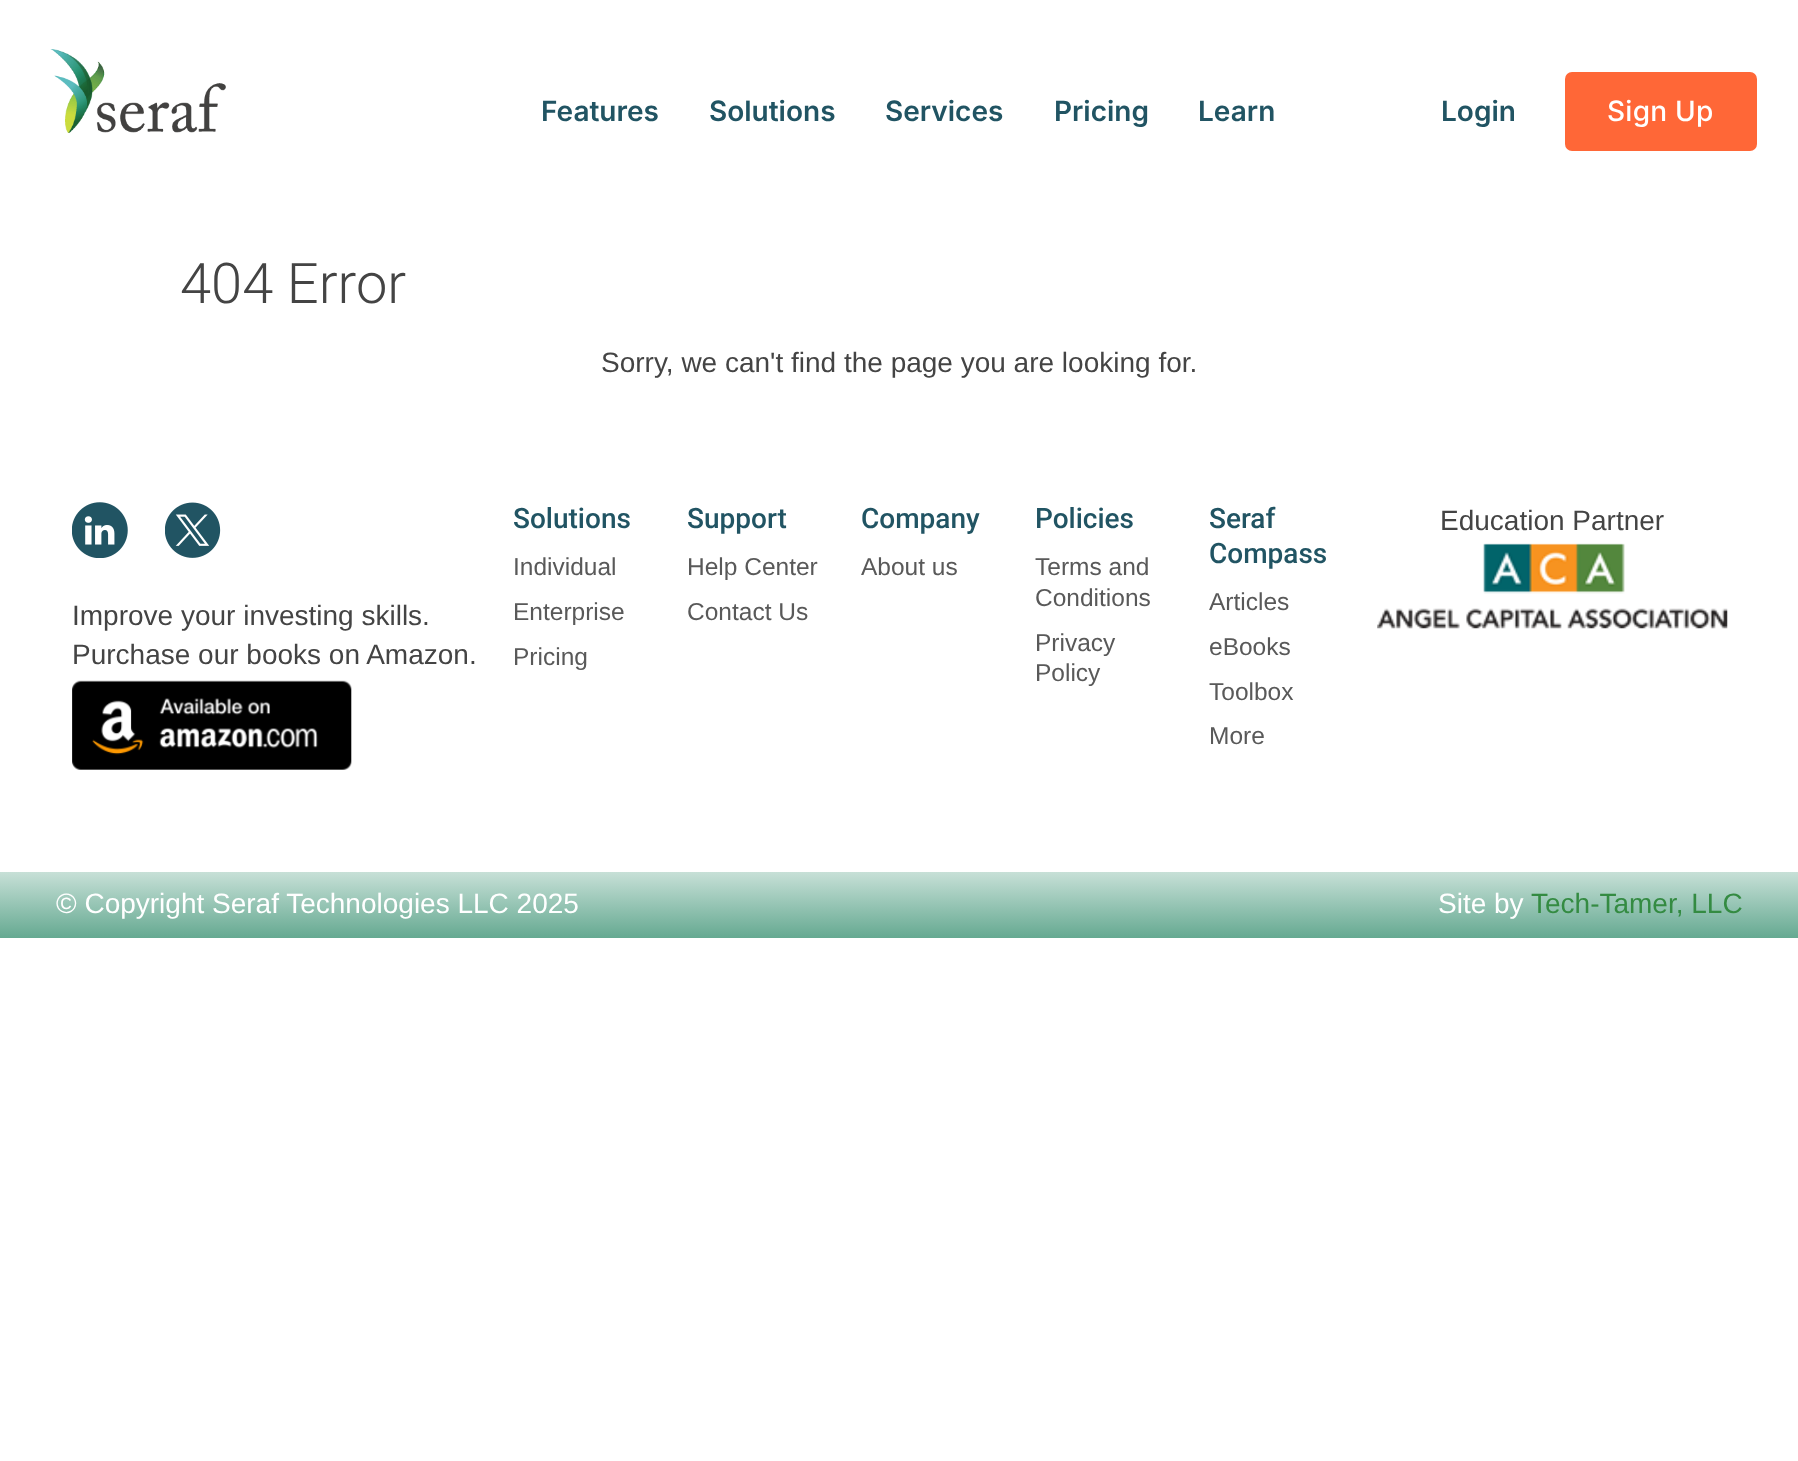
<svg xmlns="http://www.w3.org/2000/svg" width="1798" height="1461">
	<defs>
		<linearGradient id="g1" gradientUnits="userSpaceOnUse" x1="900" y1="938" x2="900" y2="872"><stop offset="0" stop-color="#65A991" /><stop offset="1" stop-color="#C7E0D7" /></linearGradient>
	</defs>
	<rect width="100%" height="100%" fill="#FFFFFF" />
	<image x="50" y="49" width="176" height="84" href="assets/img1.png" />
	<g font-family="Inter" font-size="28" font-weight="600" fill="#215463">
		<text x="541" y="121">Features</text>
		<text x="709" y="121">Solutions</text>
		<text x="885" y="121">Services</text>
		<text x="1054" y="121">Pricing</text>
		<text x="1198" y="121">Learn</text>
		<text x="1441" y="121">Login</text>
	</g>
	<rect x="1565" y="72" width="192" height="79" rx="7" fill="#FF6737" />
	<text x="1607" y="121" font-family="Inter" font-size="28" font-weight="500" letter-spacing="0.25" fill="#FFFFFF">Sign Up</text>
	<text x="180" y="303" font-family="Roboto" font-size="56" font-weight="300" fill="#444444">404 Error</text>
	<text x="601" y="372" font-family="Liberation Sans" font-size="28" fill="#444444">Sorry, we can't find the page you are looking for.</text>
	<text x="513" y="528" font-family="Roboto" font-size="28" font-weight="500" fill="#215463">Solutions</text>
	<g font-family="Liberation Sans" font-size="24.5" fill="#595959">
		<text x="513" y="575">Individual</text>
		<text x="513" y="620">Enterprise</text>
		<text x="513" y="665">Pricing</text>
	</g>
	<text x="687" y="528" font-family="Roboto" font-size="28" font-weight="500" fill="#215463">Support</text>
	<g font-family="Liberation Sans" font-size="24.5" fill="#595959">
		<text x="687" y="575">Help Center</text>
		<text x="687" y="620">Contact Us</text>
	</g>
	<text x="861" y="528" font-family="Roboto" font-size="28" font-weight="500" fill="#215463">Company</text>
	<text x="861" y="575" font-family="Liberation Sans" font-size="24.5" fill="#595959">About us</text>
	<text x="1035" y="528" font-family="Roboto" font-size="28" font-weight="500" fill="#215463">Policies</text>
	<g font-family="Liberation Sans" font-size="24.5" fill="#595959">
		<text x="1035" y="575">Terms and</text>
		<text x="1035" y="606">Conditions</text>
		<text x="1035" y="651">Privacy</text>
		<text x="1035" y="681">Policy</text>
	</g>
	<g font-family="Roboto" font-size="28" font-weight="500" fill="#215463">
		<text x="1209" y="528">Seraf</text>
		<text x="1209" y="563">Compass</text>
	</g>
	<g font-family="Liberation Sans" font-size="24.5" fill="#595959">
		<text x="1209" y="610">Articles</text>
		<text x="1209" y="655">eBooks</text>
		<text x="1209" y="700">Toolbox</text>
		<text x="1209" y="744">More</text>
	</g>
	<text x="1440" y="530" font-family="Liberation Sans" font-size="28" fill="#444444">Education Partner</text>
	<image x="1377" y="543" width="351" height="86" href="assets/img2.png" />
	<image x="72" y="502" width="56" height="56" href="assets/img3.png" />
	<image x="165" y="502" width="56" height="56" href="assets/img4.png" />
	<g font-family="Liberation Sans" font-size="28" fill="#444444">
		<text x="72" y="625">Improve your investing skills.</text>
		<text x="72" y="664">Purchase our books on Amazon.</text>
	</g>
	<image x="72" y="680" width="280" height="90" href="assets/img5.png" />
	<rect x="0" y="872" width="1798" height="66" fill="url(#g1)" />
	<g font-family="Liberation Sans" font-size="28" fill="#FFFFFF">
		<text x="56" y="913">© Copyright Seraf Technologies LLC 2025</text>
		<text x="1438" y="913">Site by</text>
	</g>
	<text x="1531" y="913" font-family="Liberation Sans" font-size="28" fill="#348B42">Tech-Tamer, LLC</text>
</svg>
